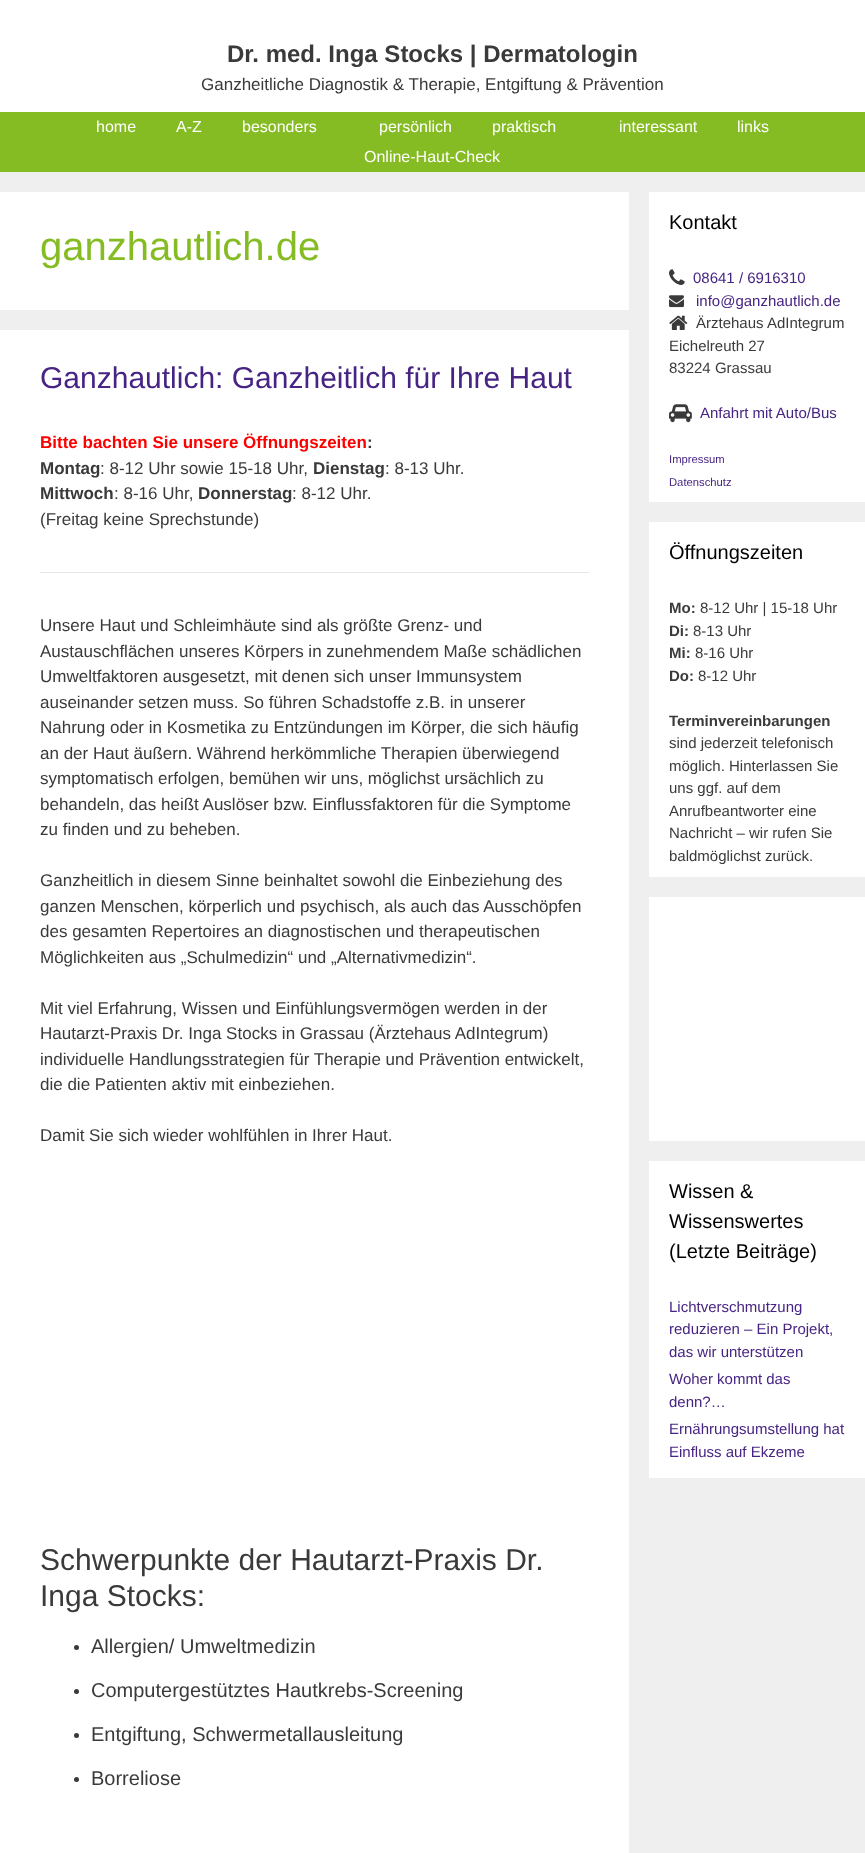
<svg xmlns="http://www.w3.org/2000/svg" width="865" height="1853">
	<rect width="100%" height="100%" fill="#EFEFEF" />
	<rect x="0" y="0" width="865" height="112" fill="#FFFFFF" />
	<text x="227" y="62" font-family="Liberation Sans" font-size="24" font-weight="700" fill="#3A3A3A">Dr. med. Inga Stocks | Dermatologin</text>
	<text x="201" y="90" font-family="Liberation Sans" font-size="17" fill="#3A3A3A">Ganzheitliche Diagnostik &amp; Therapie, Entgiftung &amp; Prävention</text>
	<rect x="0" y="112" width="865" height="60" fill="#86BC23" />
	<g font-family="Liberation Sans" font-size="16" fill="#FFFFFF">
		<text x="96" y="132">home</text>
		<text x="176" y="132">A-Z</text>
		<text x="242" y="132">besonders</text>
		<text x="379" y="132">persönlich</text>
		<text x="492" y="132">praktisch</text>
		<text x="619" y="132">interessant</text>
		<text x="737" y="132">links</text>
		<text x="364" y="162">Online-Haut-Check</text>
	</g>
	<rect x="0" y="192" width="629" height="118" fill="#FFFFFF" />
	<text x="40" y="260" font-family="Liberation Sans" font-size="40" fill="#86BC23">ganzhautlich.de</text>
	<rect x="0" y="330" width="629" height="1523" fill="#FFFFFF" />
	<text x="40" y="388" font-family="Liberation Sans" font-size="30" fill="#472483">Ganzhautlich: Ganzheitlich für Ihre Haut</text>
	<text x="40" y="448" font-family="Liberation Sans" font-size="17" font-weight="700" fill="#FF0000">Bitte bachten Sie unsere Öffnungszeiten</text>
	<g font-family="Liberation Sans" font-size="17" font-weight="700" fill="#3A3A3A">
		<text x="367" y="448">:</text>
		<text x="40" y="474">Montag</text>
	</g>
	<text x="100" y="474" font-family="Liberation Sans" font-size="17" fill="#3A3A3A">: 8-12 Uhr sowie 15-18 Uhr,</text>
	<text x="313" y="474" font-family="Liberation Sans" font-size="17" font-weight="700" fill="#3A3A3A">Dienstag</text>
	<text x="385" y="474" font-family="Liberation Sans" font-size="17" fill="#3A3A3A">: 8-13 Uhr.</text>
	<text x="40" y="499" font-family="Liberation Sans" font-size="17" font-weight="700" fill="#3A3A3A">Mittwoch</text>
	<text x="114" y="499" font-family="Liberation Sans" font-size="17" fill="#3A3A3A">: 8-16 Uhr,</text>
	<text x="198" y="499" font-family="Liberation Sans" font-size="17" font-weight="700" fill="#3A3A3A">Donnerstag</text>
	<g font-family="Liberation Sans" font-size="17" fill="#3A3A3A">
		<text x="292" y="499">: 8-12 Uhr.</text>
		<text x="40" y="525">(Freitag keine Sprechstunde)</text>
	</g>
	<rect x="40" y="572" width="549" height="1" fill="#E6E6E6" />
	<g font-family="Liberation Sans" font-size="17" fill="#3A3A3A">
		<text x="40" y="631">Unsere Haut und Schleimhäute sind als größte Grenz- und</text>
		<text x="40" y="657">Austauschflächen unseres Körpers in zunehmendem Maße schädlichen</text>
		<text x="40" y="682">Umweltfaktoren ausgesetzt, mit denen sich unser Immunsystem</text>
		<text x="40" y="708">auseinander setzen muss. So führen Schadstoffe z.B. in unserer</text>
		<text x="40" y="733">Nahrung oder in Kosmetika zu Entzündungen im Körper, die sich häufig</text>
		<text x="40" y="759">an der Haut äußern. Während herkömmliche Therapien überwiegend</text>
		<text x="40" y="784">symptomatisch erfolgen, bemühen wir uns, möglichst ursächlich zu</text>
		<text x="40" y="810">behandeln, das heißt Auslöser bzw. Einflussfaktoren für die Symptome</text>
		<text x="40" y="835">zu finden und zu beheben.</text>
		<text x="40" y="886">Ganzheitlich in diesem Sinne beinhaltet sowohl die Einbeziehung des</text>
		<text x="40" y="912">ganzen Menschen, körperlich und psychisch, als auch das Ausschöpfen</text>
		<text x="40" y="937">des gesamten Repertoires an diagnostischen und therapeutischen</text>
		<text x="40" y="963">Möglichkeiten aus „Schulmedizin“ und „Alternativmedizin“.</text>
		<text x="40" y="1014">Mit viel Erfahrung, Wissen und Einfühlungsvermögen werden in der</text>
		<text x="40" y="1039">Hautarzt-Praxis Dr. Inga Stocks in Grassau (Ärztehaus AdIntegrum)</text>
		<text x="40" y="1065">individuelle Handlungsstrategien für Therapie und Prävention entwickelt,</text>
		<text x="40" y="1090">die die Patienten aktiv mit einbeziehen.</text>
		<text x="40" y="1141">Damit Sie sich wieder wohlfühlen in Ihrer Haut.</text>
	</g>
	<g font-family="Liberation Sans" font-size="30" fill="#3A3A3A">
		<text x="40" y="1570">Schwerpunkte der Hautarzt-Praxis Dr.</text>
		<text x="40" y="1606">Inga Stocks:</text>
	</g>
	<circle cx="76.5" cy="1647.5" r="2.5" fill="#3A3A3A" />
	<text x="91" y="1653" font-family="Liberation Sans" font-size="20" fill="#3A3A3A">Allergien/ Umweltmedizin</text>
	<circle cx="76.5" cy="1691.5" r="2.5" fill="#3A3A3A" />
	<text x="91" y="1697" font-family="Liberation Sans" font-size="20" fill="#3A3A3A">Computergestütztes Hautkrebs-Screening</text>
	<circle cx="76.5" cy="1735.5" r="2.5" fill="#3A3A3A" />
	<text x="91" y="1741" font-family="Liberation Sans" font-size="20" fill="#3A3A3A">Entgiftung, Schwermetallausleitung</text>
	<circle cx="76.5" cy="1779.5" r="2.5" fill="#3A3A3A" />
	<text x="91" y="1785" font-family="Liberation Sans" font-size="20" fill="#3A3A3A">Borreliose</text>
	<rect x="649" y="192" width="216" height="310" fill="#FFFFFF" />
	<text x="669" y="229" font-family="Liberation Sans" font-size="20" fill="#000000">Kontakt</text>
	<image x="669" y="269" width="16" height="16" href="assets/img1.png" />
	<text x="693" y="283" font-family="Liberation Sans" font-size="15" fill="#472483">08641 / 6916310</text>
	<image x="669" y="295" width="15" height="13" href="assets/img2.png" />
	<text x="696" y="306" font-family="Liberation Sans" font-size="15" fill="#472483">info@ganzhautlich.de</text>
	<image x="669" y="315" width="19" height="15" href="assets/img3.png" />
	<g font-family="Liberation Sans" font-size="15" fill="#3A3A3A">
		<text x="696" y="328">Ärztehaus AdIntegrum</text>
		<text x="669" y="351">Eichelreuth 27</text>
		<text x="669" y="373">83224 Grassau</text>
	</g>
	<image x="669" y="404" width="23" height="19" href="assets/img4.png" />
	<text x="700" y="418" font-family="Liberation Sans" font-size="15" fill="#472483">Anfahrt mit Auto/Bus</text>
	<g font-family="Liberation Sans" font-size="11.25" fill="#472483">
		<text x="669" y="463">Impressum</text>
		<text x="669" y="486">Datenschutz</text>
	</g>
	<rect x="649" y="522" width="216" height="355" fill="#FFFFFF" />
	<text x="669" y="559" font-family="Liberation Sans" font-size="20" fill="#000000">Öffnungszeiten</text>
	<text x="669" y="613" font-family="Liberation Sans" font-size="15" font-weight="700" fill="#3A3A3A">Mo:</text>
	<text x="700" y="613" font-family="Liberation Sans" font-size="15" fill="#3A3A3A">8-12 Uhr | 15-18 Uhr</text>
	<text x="669" y="636" font-family="Liberation Sans" font-size="15" font-weight="700" fill="#3A3A3A">Di:</text>
	<text x="693" y="636" font-family="Liberation Sans" font-size="15" fill="#3A3A3A">8-13 Uhr</text>
	<text x="669" y="658" font-family="Liberation Sans" font-size="15" font-weight="700" fill="#3A3A3A">Mi:</text>
	<text x="695" y="658" font-family="Liberation Sans" font-size="15" fill="#3A3A3A">8-16 Uhr</text>
	<text x="669" y="681" font-family="Liberation Sans" font-size="15" font-weight="700" fill="#3A3A3A">Do:</text>
	<text x="698" y="681" font-family="Liberation Sans" font-size="15" fill="#3A3A3A">8-12 Uhr</text>
	<text x="669" y="726" font-family="Liberation Sans" font-size="15" font-weight="700" fill="#3A3A3A">Terminvereinbarungen</text>
	<g font-family="Liberation Sans" font-size="15" fill="#3A3A3A">
		<text x="669" y="748">sind jederzeit telefonisch</text>
		<text x="669" y="771">möglich. Hinterlassen Sie</text>
		<text x="669" y="793">uns ggf. auf dem</text>
		<text x="669" y="816">Anrufbeantworter eine</text>
		<text x="669" y="838">Nachricht – wir rufen Sie</text>
		<text x="669" y="861">baldmöglichst zurück.</text>
	</g>
	<rect x="649" y="897" width="216" height="244" fill="#FFFFFF" />
	<rect x="649" y="1161" width="216" height="317" fill="#FFFFFF" />
	<g font-family="Liberation Sans" font-size="20" fill="#000000">
		<text x="669" y="1198">Wissen &amp;</text>
		<text x="669" y="1228">Wissenswertes</text>
		<text x="669" y="1258">(Letzte Beiträge)</text>
	</g>
	<g font-family="Liberation Sans" font-size="15" fill="#472483">
		<text x="669" y="1312">Lichtverschmutzung</text>
		<text x="669" y="1334">reduzieren – Ein Projekt,</text>
		<text x="669" y="1357">das wir unterstützen</text>
		<text x="669" y="1384">Woher kommt das</text>
		<text x="669" y="1407">denn?…</text>
		<text x="669" y="1434">Ernährungsumstellung hat</text>
		<text x="669" y="1457">Einfluss auf Ekzeme</text>
	</g>
</svg>
